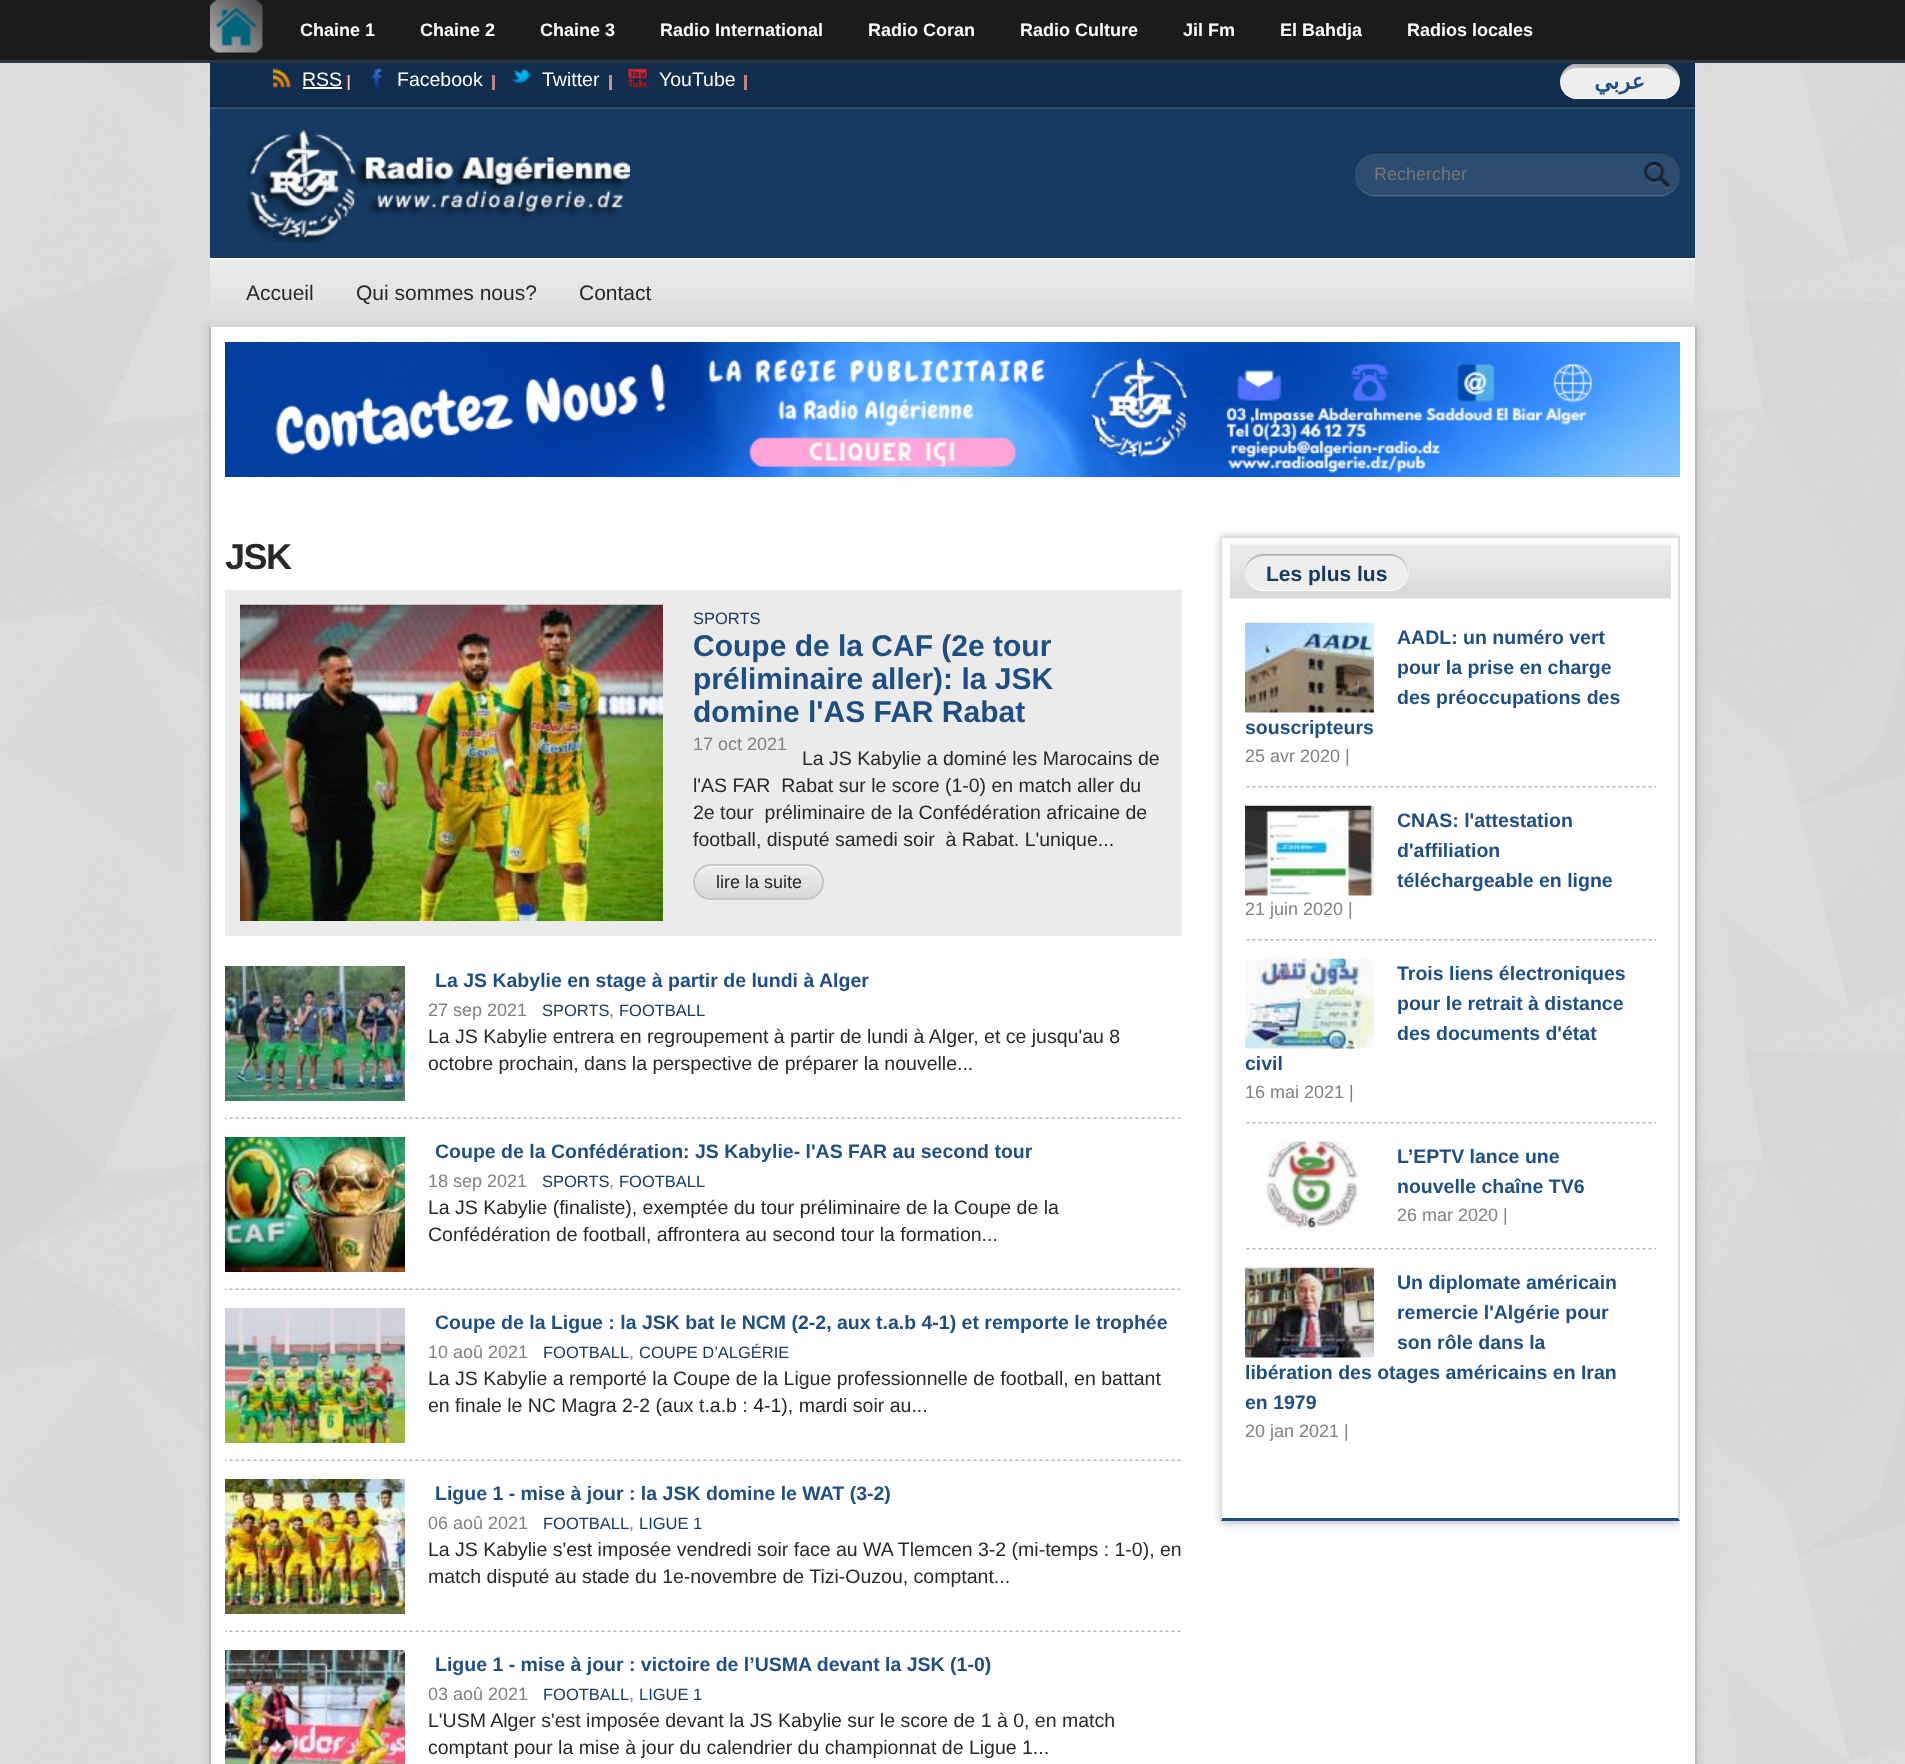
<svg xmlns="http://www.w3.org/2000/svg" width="1905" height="1764">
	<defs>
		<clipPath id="clip1"><rect x="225" y="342" width="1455" height="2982" /></clipPath>
		<clipPath id="clip2"><path d="M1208 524H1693V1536H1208ZM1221 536H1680V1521H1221Z" clip-rule="evenodd" /></clipPath>
	</defs>
	<rect width="100%" height="100%" fill="#FFFFFF" />
	<image x="0" y="63" width="1905" height="1701" href="assets/img1.png" />
	<rect x="0" y="0" width="1905" height="60" fill="#1B1B1B" />
	<rect x="0" y="60" width="1905" height="3" fill="#283744" />
	<image x="210" y="0" width="53" height="53" href="assets/img2.png" />
	<g font-family="Liberation Sans" font-size="18" font-weight="700" fill="#FFFFFF">
		<text x="300" y="36">Chaine 1</text>
		<text x="420" y="36">Chaine 2</text>
		<text x="540" y="36">Chaine 3</text>
		<text x="660" y="36">Radio International</text>
		<text x="868" y="36">Radio Coran</text>
		<text x="1020" y="36">Radio Culture</text>
		<text x="1183" y="36">Jil Fm</text>
		<text x="1280" y="36">El Bahdja</text>
		<text x="1407" y="36">Radios locales</text>
	</g>
	<rect x="210" y="63" width="1485" height="42" fill="#122E4E" />
	<rect x="210" y="105" width="1485" height="2" fill="#0F2640" />
	<image x="346" y="75" width="4" height="15" href="assets/img3.png" />
	<image x="273" y="68" width="19" height="20" href="assets/img4.png" />
	<text x="302" y="86" font-family="Liberation Sans" font-size="19.5" fill="#FFFFFF">RSS</text>
	<rect x="303" y="87" width="39" height="2" fill="#FFFFFF" />
	<rect x="492" y="75" width="3" height="15" fill="#BE8282" />
	<image x="371" y="68" width="11" height="20" href="assets/img5.png" />
	<text x="397" y="86" font-family="Liberation Sans" font-size="19.5" fill="#FFFFFF">Facebook</text>
	<rect x="609" y="75" width="3" height="15" fill="#C59090" />
	<image x="511" y="68" width="21" height="15" href="assets/img6.png" />
	<text x="542" y="86" font-family="Liberation Sans" font-size="19.5" fill="#FFFFFF">Twitter</text>
	<rect x="744" y="75" width="3" height="15" fill="#BE8282" />
	<image x="628" y="68" width="19" height="20" href="assets/img7.png" />
	<text x="659" y="86" font-family="Liberation Sans" font-size="19.5" fill="#FFFFFF">YouTube</text>
	<rect x="1560" y="65" width="120" height="34" rx="17" fill="#EEEEEE" />
	<path d="M1577 68H1663C1672 68 1680 75 1680 82C1680 73 1672 66 1663 66H1577C1568 66 1560 73 1560 82C1560 75 1568 68 1577 68Z" fill="#000000" fill-opacity="0.2" />
	<path d="M1577 66C1568 66 1560 73 1560 82C1560 73 1566 66 1573 64H1667C1674 66 1680 73 1680 82C1680 73 1672 66 1663 66Z" fill="#ADADAD" />
	<path d="M1577 99H1663C1672 99 1680 91 1680 82C1680 90 1672 98 1663 98H1577C1568 98 1560 90 1560 82C1560 91 1568 99 1577 99Z" fill="#FFFFFF" />
	<text x="1645" y="89" font-family="DejaVu Sans" font-size="22.5" font-weight="700" direction="rtl" fill="#1F4F82">عربي</text>
	<rect x="210" y="109" width="1485" height="149" fill="#163A61" />
	<rect x="210" y="107" width="1485" height="2" fill="#305072" />
	<image x="247" y="130" width="383" height="113" href="assets/img8.png" />
	<rect x="1355" y="152" width="325" height="45" rx="21" fill="#2D4D70" />
	<path d="M1376 154H1659C1671 154 1680 163 1680 174V172C1680 162 1671 153 1659 153H1376C1366 153 1357 159 1355 168C1358 160 1366 154 1376 154Z" fill="#000000" fill-opacity="0.1" />
	<path d="M1376 152H1659C1671 152 1680 161 1680 172C1680 162 1671 153 1659 153H1376C1366 153 1357 160 1354 168C1357 159 1366 152 1376 152Z" fill="#1C3045" />
	<path d="M1659 196C1671 196 1680 187 1680 176C1680 186 1671 195 1659 195H1376C1366 195 1357 188 1354 180C1357 189 1366 196 1376 196Z" fill="#4C6886" />
	<text x="1374" y="180" font-family="Liberation Sans" font-size="18" fill="#757575">Rechercher</text>
	<image x="1644" y="162" width="26" height="27" href="assets/img9.png" />
	<rect x="209" y="327" width="1488" height="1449" fill="#BBBBBB" filter="blur(4px)" />
	<image x="210" y="258" width="1485" height="69" href="assets/img10.png" />
	<g font-family="Liberation Sans" font-size="21" fill="#282828">
		<text x="246" y="300">Accueil</text>
		<text x="356" y="300">Qui sommes nous?</text>
		<text x="579" y="300">Contact</text>
	</g>
	<rect x="211" y="327" width="1484" height="1437" fill="#FFFFFF" />
	<rect x="1695" y="327" width="2" height="1437" fill="#BBBBBB" />
	<rect x="209" y="327" width="2" height="1437" fill="#BBBBBB" />
	<image x="225" y="342" width="1455" height="135" href="assets/img11.png" />
	<text x="225" y="569" font-family="Liberation Sans" font-size="36" font-weight="700" letter-spacing="-1.5" fill="#282828">JSK</text>
	<rect x="225" y="590" width="957" height="346" fill="#EBEBEB" />
	<image x="240" y="604" width="423" height="317" href="assets/img12.png" />
	<text x="693" y="624" font-family="Liberation Sans" font-size="16.5" fill="#163A61">SPORTS</text>
	<g font-family="Liberation Sans" font-size="30" font-weight="700" fill="#1F4F82">
		<text x="693" y="656">Coupe de la CAF (2e tour</text>
		<text x="693" y="689">préliminaire aller): la JSK</text>
		<text x="693" y="722">domine l'AS FAR Rabat</text>
	</g>
	<text x="693" y="750" font-family="Liberation Sans" font-size="18" fill="#828181">17 oct 2021</text>
	<g font-family="Liberation Sans" font-size="19.5" fill="#282828">
		<text x="802" y="765">La JS Kabylie a dominé les Marocains de</text>
		<text x="693" y="792" xml:space="preserve">l'AS FAR  Rabat sur le score (1-0) en match aller du</text>
		<text x="693" y="819" xml:space="preserve">2e tour  préliminaire de la Confédération africaine de</text>
		<text x="693" y="846" xml:space="preserve">football, disputé samedi soir  à Rabat. L'unique...</text>
	</g>
	<image x="693" y="875" width="130" height="24" href="assets/img13.png" />
	<path d="M711 867H806C815 867 822 874 822 883V882C822 873 815 866 806 866H712C706 866 701 869 698 873C701 869 706 867 711 867Z" fill="#FFFFFF" />
	<rect x="694" y="865" width="129" height="34" rx="17" fill="none" stroke="#C6C6C6" stroke-width="2" />
	<text x="716" y="888" font-family="Liberation Sans" font-size="18" fill="#282828">lire la suite</text>
	<image x="225" y="1117" width="956" height="2" href="assets/img14.png" />
	<image x="225" y="966" width="180" height="135" href="assets/img15.png" />
	<text x="435" y="987" font-family="Liberation Sans" font-size="19.5" font-weight="700" fill="#1F4F82">La JS Kabylie en stage à partir de lundi à Alger</text>
	<text x="428" y="1016" font-family="Liberation Sans" font-size="18" fill="#828181">27 sep 2021</text>
	<text x="542" y="1016" font-family="Liberation Sans" font-size="16.5" fill="#163A61">SPORTS</text>
	<text x="609" y="1016" font-family="Liberation Sans" font-size="18" fill="#828181">,</text>
	<text x="619" y="1016" font-family="Liberation Sans" font-size="16.5" fill="#163A61">FOOTBALL</text>
	<g font-family="Liberation Sans" font-size="19.5" fill="#282828">
		<text x="428" y="1043">La JS Kabylie entrera en regroupement à partir de lundi à Alger, et ce jusqu'au 8</text>
		<text x="428" y="1070">octobre prochain, dans la perspective de préparer la nouvelle...</text>
	</g>
	<image x="225" y="1288" width="956" height="2" href="assets/img14.png" />
	<image x="225" y="1137" width="180" height="135" href="assets/img16.png" />
	<text x="435" y="1158" font-family="Liberation Sans" font-size="19.5" font-weight="700" fill="#1F4F82">Coupe de la Confédération: JS Kabylie- l'AS FAR au second tour</text>
	<text x="428" y="1187" font-family="Liberation Sans" font-size="18" fill="#828181">18 sep 2021</text>
	<text x="542" y="1187" font-family="Liberation Sans" font-size="16.5" fill="#163A61">SPORTS</text>
	<text x="609" y="1187" font-family="Liberation Sans" font-size="18" fill="#828181">,</text>
	<text x="619" y="1187" font-family="Liberation Sans" font-size="16.5" fill="#163A61">FOOTBALL</text>
	<g font-family="Liberation Sans" font-size="19.5" fill="#282828">
		<text x="428" y="1214">La JS Kabylie (finaliste), exemptée du tour préliminaire de la Coupe de la</text>
		<text x="428" y="1241">Confédération de football, affrontera au second tour la formation...</text>
	</g>
	<image x="225" y="1459" width="956" height="2" href="assets/img14.png" />
	<image x="225" y="1308" width="180" height="135" href="assets/img17.png" />
	<text x="435" y="1329" font-family="Liberation Sans" font-size="19.5" font-weight="700" fill="#1F4F82">Coupe de la Ligue : la JSK bat le NCM (2-2, aux t.a.b 4-1) et remporte le trophée</text>
	<text x="428" y="1358" font-family="Liberation Sans" font-size="18" fill="#828181">10 aoû 2021</text>
	<text x="543" y="1358" font-family="Liberation Sans" font-size="16.5" fill="#163A61">FOOTBALL</text>
	<text x="629" y="1358" font-family="Liberation Sans" font-size="18" fill="#828181">,</text>
	<text x="639" y="1358" font-family="Liberation Sans" font-size="16.5" fill="#163A61">COUPE D’ALGÉRIE</text>
	<g font-family="Liberation Sans" font-size="19.5" fill="#282828">
		<text x="428" y="1385">La JS Kabylie a remporté la Coupe de la Ligue professionnelle de football, en battant</text>
		<text x="428" y="1412">en finale le NC Magra 2-2 (aux t.a.b : 4-1), mardi soir au...</text>
	</g>
	<image x="225" y="1630" width="956" height="2" href="assets/img14.png" />
	<image x="225" y="1479" width="180" height="135" href="assets/img18.png" />
	<text x="435" y="1500" font-family="Liberation Sans" font-size="19.5" font-weight="700" fill="#1F4F82">Ligue 1 - mise à jour : la JSK domine le WAT (3-2)</text>
	<text x="428" y="1529" font-family="Liberation Sans" font-size="18" fill="#828181">06 aoû 2021</text>
	<text x="543" y="1529" font-family="Liberation Sans" font-size="16.5" fill="#163A61">FOOTBALL</text>
	<text x="629" y="1529" font-family="Liberation Sans" font-size="18" fill="#828181">,</text>
	<text x="639" y="1529" font-family="Liberation Sans" font-size="16.5" fill="#163A61">LIGUE 1</text>
	<g font-family="Liberation Sans" font-size="19.5" fill="#282828">
		<text x="428" y="1556">La JS Kabylie s'est imposée vendredi soir face au WA Tlemcen 3-2 (mi-temps : 1-0), en</text>
		<text x="428" y="1583">match disputé au stade du 1e-novembre de Tizi-Ouzou, comptant...</text>
	</g>
	<image x="225" y="1650" width="180" height="114" href="assets/img19.png" />
	<text x="435" y="1671" font-family="Liberation Sans" font-size="19.5" font-weight="700" fill="#1F4F82">Ligue 1 - mise à jour : victoire de l’USMA devant la JSK (1-0)</text>
	<text x="428" y="1700" font-family="Liberation Sans" font-size="18" fill="#828181">03 aoû 2021</text>
	<text x="543" y="1700" font-family="Liberation Sans" font-size="16.5" fill="#163A61">FOOTBALL</text>
	<text x="629" y="1700" font-family="Liberation Sans" font-size="18" fill="#828181">,</text>
	<text x="639" y="1700" font-family="Liberation Sans" font-size="16.5" fill="#163A61">LIGUE 1</text>
	<g font-family="Liberation Sans" font-size="19.5" fill="#282828">
		<text x="428" y="1727">L'USM Alger s'est imposée devant la JS Kabylie sur le score de 1 à 0, en match</text>
		<text x="428" y="1754">comptant pour la mise à jour du calendrier du championnat de Ligue 1...</text>
	</g>
	<g clip-path="url(#clip1)">
		<g clip-path="url(#clip2)">
			<rect x="1221" y="537" width="459" height="986" fill="#BBBBBB" filter="blur(4px)" />
		</g>
	</g>
	<rect x="1221" y="536" width="459" height="2" fill="#DDDDDD" />
	<path d="M1680 536V1521L1678 1518V537Z" fill="#DDDDDD" />
	<path d="M1680 1521H1221L1222 1518H1678Z" fill="#1F4F82" />
	<path d="M1221 1521V536L1222 537V1518Z" fill="#DDDDDD" />
	<image x="1230" y="544" width="441" height="55" href="assets/img20.png" />
	<rect x="1245" y="554" width="164" height="37" rx="18.5" fill="#EEEEEE" />
	<path d="M1264 556H1390C1400 556 1408 564 1408 574V578V572C1408 563 1400 555 1390 555H1264C1253 555 1245 563 1245 572V573C1245 564 1253 556 1264 556Z" fill="#BEBEBE" />
	<path d="M1264 554C1253 554 1245 562 1245 572C1245 563 1253 555 1264 555H1390C1400 555 1408 563 1408 572C1408 562 1400 554 1390 554Z" fill="#ADADAD" />
	<path d="M1390 591C1400 591 1408 583 1408 572C1408 582 1400 590 1390 590H1264C1253 590 1245 582 1245 572C1245 583 1253 591 1264 591Z" fill="#FFFFFF" />
	<text x="1266" y="581" font-family="Liberation Sans" font-size="21" font-weight="700" fill="#163A61">Les plus lus</text>
	<image x="1246" y="786" width="410" height="2" href="assets/img21.png" />
	<image x="1245" y="622" width="129" height="91" href="assets/img22.png" />
	<g font-family="Liberation Sans" font-size="19.5" font-weight="700" fill="#1F4F82">
		<text x="1397" y="644">AADL: un numéro vert</text>
		<text x="1397" y="674">pour la prise en charge</text>
		<text x="1397" y="704">des préoccupations des</text>
		<text x="1245" y="734">souscripteurs</text>
	</g>
	<text x="1245" y="762" font-family="Liberation Sans" font-size="18" fill="#828181">25 avr 2020 |</text>
	<image x="1246" y="939" width="410" height="2" href="assets/img21.png" />
	<image x="1245" y="805" width="129" height="91" href="assets/img23.png" />
	<g font-family="Liberation Sans" font-size="19.5" font-weight="700" fill="#1F4F82">
		<text x="1397" y="827">CNAS: l'attestation</text>
		<text x="1397" y="857">d'affiliation</text>
		<text x="1397" y="887">téléchargeable en ligne</text>
	</g>
	<text x="1245" y="915" font-family="Liberation Sans" font-size="18" fill="#828181">21 juin 2020 |</text>
	<image x="1246" y="1122" width="410" height="2" href="assets/img21.png" />
	<image x="1245" y="958" width="129" height="91" href="assets/img24.png" />
	<g font-family="Liberation Sans" font-size="19.5" font-weight="700" fill="#1F4F82">
		<text x="1397" y="980">Trois liens électroniques</text>
		<text x="1397" y="1010">pour le retrait à distance</text>
		<text x="1397" y="1040">des documents d'état</text>
		<text x="1245" y="1070">civil</text>
	</g>
	<text x="1245" y="1098" font-family="Liberation Sans" font-size="18" fill="#828181">16 mai 2021 |</text>
	<image x="1246" y="1248" width="410" height="2" href="assets/img21.png" />
	<image x="1259" y="1141" width="106" height="91" href="assets/img25.png" />
	<g font-family="Liberation Sans" font-size="19.5" font-weight="700" fill="#1F4F82">
		<text x="1397" y="1163">L’EPTV lance une</text>
		<text x="1397" y="1193">nouvelle chaîne TV6</text>
	</g>
	<text x="1397" y="1221" font-family="Liberation Sans" font-size="18" fill="#828181">26 mar 2020 |</text>
	<image x="1245" y="1267" width="129" height="91" href="assets/img26.png" />
	<g font-family="Liberation Sans" font-size="19.5" font-weight="700" fill="#1F4F82">
		<text x="1397" y="1289">Un diplomate américain</text>
		<text x="1397" y="1319">remercie l'Algérie pour</text>
		<text x="1397" y="1349">son rôle dans la</text>
		<text x="1245" y="1379">libération des otages américains en Iran</text>
		<text x="1245" y="1409">en 1979</text>
	</g>
	<text x="1245" y="1437" font-family="Liberation Sans" font-size="18" fill="#828181">20 jan 2021 |</text>
</svg>
